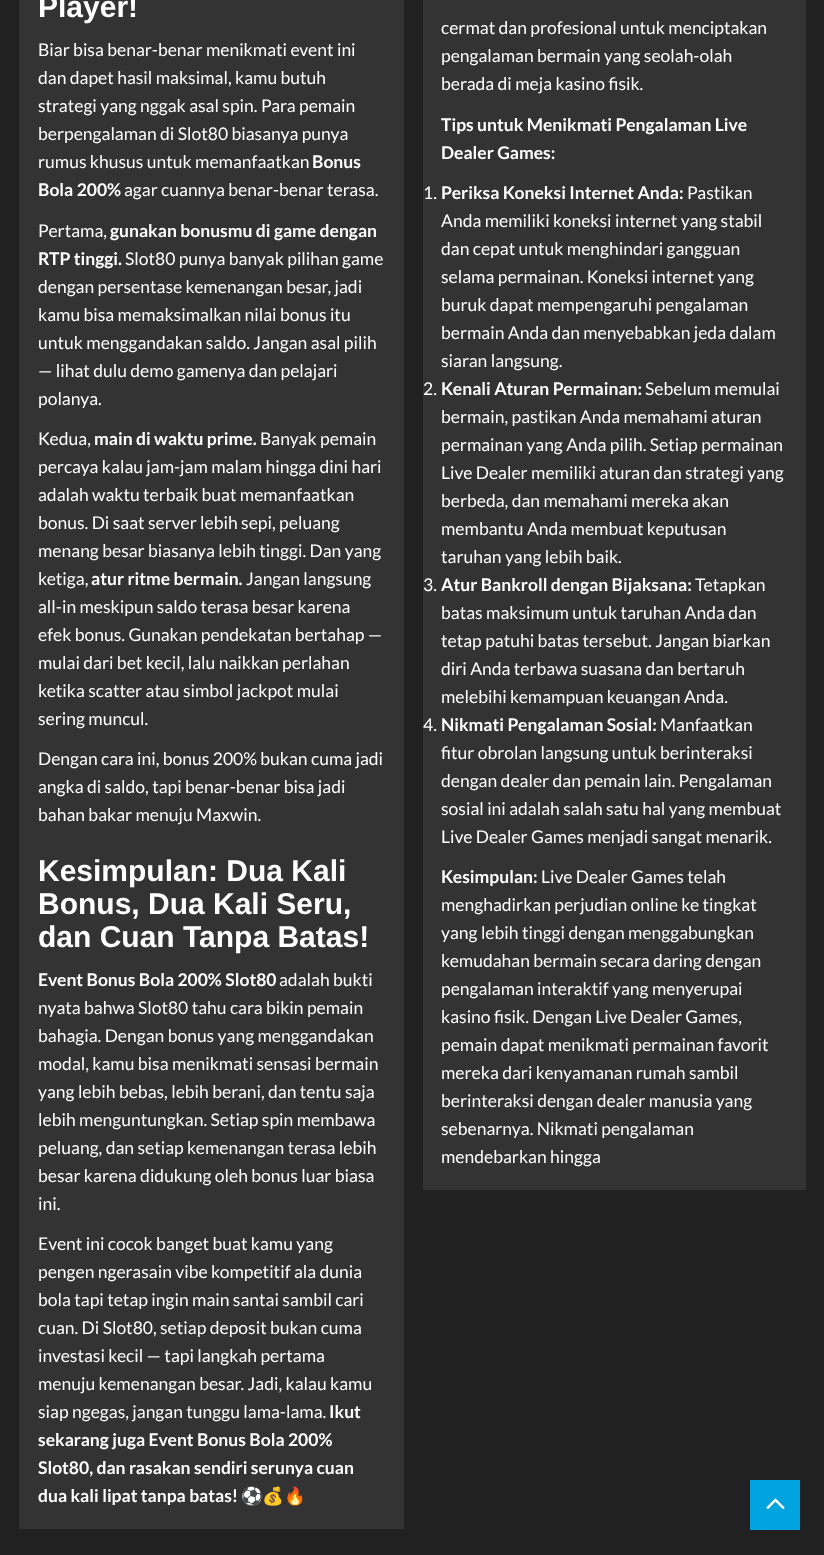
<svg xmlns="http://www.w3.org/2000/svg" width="824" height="1555">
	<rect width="100%" height="100%" fill="#212121" />
	<rect x="19" y="0" width="385" height="1529" fill="#333333" />
	<text x="38" y="17" font-family="Liberation Sans" font-size="30" font-weight="700" fill="#FFFFFF">Player!</text>
	<g font-family="Lato" font-size="17.5" fill="#FFFFFF">
		<text x="38" y="56">Biar bisa benar-benar menikmati event ini</text>
		<text x="38" y="84">dan dapet hasil maksimal, kamu butuh</text>
		<text x="38" y="112">strategi yang nggak asal spin. Para pemain</text>
		<text x="38" y="140">berpengalaman di Slot80 biasanya punya</text>
		<text x="38" y="168">rumus khusus untuk memanfaatkan</text>
	</g>
	<g font-family="Lato" font-size="17.5" font-weight="700" fill="#FFFFFF">
		<text x="312" y="168">Bonus</text>
		<text x="38" y="196">Bola 200%</text>
	</g>
	<g font-family="Lato" font-size="17.5" fill="#FFFFFF">
		<text x="124" y="196">agar cuannya benar-benar terasa.</text>
		<text x="38" y="237">Pertama,</text>
	</g>
	<g font-family="Lato" font-size="17.5" font-weight="700" fill="#FFFFFF">
		<text x="110" y="237">gunakan bonusmu di game dengan</text>
		<text x="38" y="265">RTP tinggi.</text>
	</g>
	<g font-family="Lato" font-size="17.5" fill="#FFFFFF">
		<text x="125" y="265">Slot80 punya banyak pilihan game</text>
		<text x="38" y="293">dengan persentase kemenangan besar, jadi</text>
		<text x="38" y="321">kamu bisa memaksimalkan nilai bonus itu</text>
		<text x="38" y="349">untuk menggandakan saldo. Jangan asal pilih</text>
		<text x="38" y="377">— lihat dulu demo gamenya dan pelajari</text>
		<text x="38" y="405">polanya.</text>
		<text x="38" y="445">Kedua,</text>
	</g>
	<text x="94" y="445" font-family="Lato" font-size="17.5" font-weight="700" fill="#FFFFFF">main di waktu prime.</text>
	<g font-family="Lato" font-size="17.5" fill="#FFFFFF">
		<text x="260" y="445">Banyak pemain</text>
		<text x="38" y="473">percaya kalau jam-jam malam hingga dini hari</text>
		<text x="38" y="501">adalah waktu terbaik buat memanfaatkan</text>
		<text x="38" y="529">bonus. Di saat server lebih sepi, peluang</text>
		<text x="38" y="557">menang besar biasanya lebih tinggi. Dan yang</text>
		<text x="38" y="585">ketiga,</text>
	</g>
	<text x="91" y="585" font-family="Lato" font-size="17.5" font-weight="700" fill="#FFFFFF">atur ritme bermain.</text>
	<g font-family="Lato" font-size="17.5" fill="#FFFFFF">
		<text x="246" y="585">Jangan langsung</text>
		<text x="38" y="613">all-in meskipun saldo terasa besar karena</text>
		<text x="38" y="641">efek bonus. Gunakan pendekatan bertahap —</text>
		<text x="38" y="669">mulai dari bet kecil, lalu naikkan perlahan</text>
		<text x="38" y="697">ketika scatter atau simbol jackpot mulai</text>
		<text x="38" y="725">sering muncul.</text>
		<text x="38" y="765">Dengan cara ini, bonus 200% bukan cuma jadi</text>
		<text x="38" y="793">angka di saldo, tapi benar-benar bisa jadi</text>
		<text x="38" y="821">bahan bakar menuju Maxwin.</text>
	</g>
	<g font-family="Liberation Sans" font-size="30" font-weight="700" fill="#FFFFFF">
		<text x="38" y="881">Kesimpulan: Dua Kali</text>
		<text x="38" y="914">Bonus, Dua Kali Seru,</text>
		<text x="38" y="947">dan Cuan Tanpa Batas!</text>
	</g>
	<text x="38" y="986" font-family="Lato" font-size="17.5" font-weight="700" fill="#FFFFFF">Event Bonus Bola 200% Slot80</text>
	<g font-family="Lato" font-size="17.5" fill="#FFFFFF">
		<text x="279" y="986">adalah bukti</text>
		<text x="38" y="1014">nyata bahwa Slot80 tahu cara bikin pemain</text>
		<text x="38" y="1042">bahagia. Dengan bonus yang menggandakan</text>
		<text x="38" y="1070">modal, kamu bisa menikmati sensasi bermain</text>
		<text x="38" y="1098">yang lebih bebas, lebih berani, dan tentu saja</text>
		<text x="38" y="1126">lebih menguntungkan. Setiap spin membawa</text>
		<text x="38" y="1154">peluang, dan setiap kemenangan terasa lebih</text>
		<text x="38" y="1182">besar karena didukung oleh bonus luar biasa</text>
		<text x="38" y="1210">ini.</text>
		<text x="38" y="1250">Event ini cocok banget buat kamu yang</text>
		<text x="38" y="1278">pengen ngerasain vibe kompetitif ala dunia</text>
		<text x="38" y="1306">bola tapi tetap ingin main santai sambil cari</text>
		<text x="38" y="1334">cuan. Di Slot80, setiap deposit bukan cuma</text>
		<text x="38" y="1362">investasi kecil — tapi langkah pertama</text>
		<text x="38" y="1390">menuju kemenangan besar. Jadi, kalau kamu</text>
		<text x="38" y="1418">siap ngegas, jangan tunggu lama-lama.</text>
	</g>
	<g font-family="Lato" font-size="17.5" font-weight="700" fill="#FFFFFF">
		<text x="329" y="1418">Ikut</text>
		<text x="38" y="1446">sekarang juga Event Bonus Bola 200%</text>
		<text x="38" y="1474">Slot80, dan rasakan sendiri serunya cuan</text>
		<text x="38" y="1502">dua kali lipat tanpa batas!</text>
	</g>
	<text x="241" y="1502" font-family="Noto Color Emoji" font-size="17.5" fill="#FFFFFF">⚽💰🔥</text>
	<rect x="423" y="0" width="383" height="1190" fill="#333333" />
	<g font-family="Lato" font-size="17.5" fill="#FFFFFF">
		<text x="441" y="34">cermat dan profesional untuk menciptakan</text>
		<text x="441" y="62">pengalaman bermain yang seolah-olah</text>
		<text x="441" y="90">berada di meja kasino fisik.</text>
	</g>
	<g font-family="Lato" font-size="17.5" font-weight="700" fill="#FFFFFF">
		<text x="441" y="131">Tips untuk Menikmati Pengalaman Live</text>
		<text x="441" y="159">Dealer Games:</text>
	</g>
	<text x="423" y="199" font-family="Lato" font-size="17.5" fill="#FFFFFF">1.</text>
	<text x="441" y="199" font-family="Lato" font-size="17.5" font-weight="700" fill="#FFFFFF">Periksa Koneksi Internet Anda:</text>
	<g font-family="Lato" font-size="17.5" fill="#FFFFFF">
		<text x="687" y="199">Pastikan</text>
		<text x="441" y="227">Anda memiliki koneksi internet yang stabil</text>
		<text x="441" y="255">dan cepat untuk menghindari gangguan</text>
		<text x="441" y="283">selama permainan. Koneksi internet yang</text>
		<text x="441" y="311">buruk dapat mempengaruhi pengalaman</text>
		<text x="441" y="339">bermain Anda dan menyebabkan jeda dalam</text>
		<text x="441" y="367">siaran langsung.</text>
		<text x="423" y="395">2.</text>
	</g>
	<text x="441" y="395" font-family="Lato" font-size="17.5" font-weight="700" fill="#FFFFFF">Kenali Aturan Permainan:</text>
	<g font-family="Lato" font-size="17.5" fill="#FFFFFF">
		<text x="645" y="395">Sebelum memulai</text>
		<text x="441" y="423">bermain, pastikan Anda memahami aturan</text>
		<text x="441" y="451">permainan yang Anda pilih. Setiap permainan</text>
		<text x="441" y="479">Live Dealer memiliki aturan dan strategi yang</text>
		<text x="441" y="507">berbeda, dan memahami mereka akan</text>
		<text x="441" y="535">membantu Anda membuat keputusan</text>
		<text x="441" y="563">taruhan yang lebih baik.</text>
		<text x="423" y="591">3.</text>
	</g>
	<text x="441" y="591" font-family="Lato" font-size="17.5" font-weight="700" fill="#FFFFFF">Atur Bankroll dengan Bijaksana:</text>
	<g font-family="Lato" font-size="17.5" fill="#FFFFFF">
		<text x="695" y="591">Tetapkan</text>
		<text x="441" y="619">batas maksimum untuk taruhan Anda dan</text>
		<text x="441" y="647">tetap patuhi batas tersebut. Jangan biarkan</text>
		<text x="441" y="675">diri Anda terbawa suasana dan bertaruh</text>
		<text x="441" y="703">melebihi kemampuan keuangan Anda.</text>
		<text x="423" y="731">4.</text>
	</g>
	<text x="441" y="731" font-family="Lato" font-size="17.5" font-weight="700" fill="#FFFFFF">Nikmati Pengalaman Sosial:</text>
	<g font-family="Lato" font-size="17.5" fill="#FFFFFF">
		<text x="660" y="731">Manfaatkan</text>
		<text x="441" y="759">fitur obrolan langsung untuk berinteraksi</text>
		<text x="441" y="787">dengan dealer dan pemain lain. Pengalaman</text>
		<text x="441" y="815">sosial ini adalah salah satu hal yang membuat</text>
		<text x="441" y="843">Live Dealer Games menjadi sangat menarik.</text>
	</g>
	<text x="441" y="883" font-family="Lato" font-size="17.5" font-weight="700" fill="#FFFFFF">Kesimpulan:</text>
	<g font-family="Lato" font-size="17.5" fill="#FFFFFF">
		<text x="541" y="883">Live Dealer Games telah</text>
		<text x="441" y="911">menghadirkan perjudian online ke tingkat</text>
		<text x="441" y="939">yang lebih tinggi dengan menggabungkan</text>
		<text x="441" y="967">kemudahan bermain secara daring dengan</text>
		<text x="441" y="995">pengalaman interaktif yang menyerupai</text>
		<text x="441" y="1023">kasino fisik. Dengan Live Dealer Games,</text>
		<text x="441" y="1051">pemain dapat menikmati permainan favorit</text>
		<text x="441" y="1079">mereka dari kenyamanan rumah sambil</text>
		<text x="441" y="1107">berinteraksi dengan dealer manusia yang</text>
		<text x="441" y="1135">sebenarnya. Nikmati pengalaman</text>
		<text x="441" y="1163">mendebarkan hingga</text>
	</g>
	<rect x="750" y="1480" width="50" height="50" fill="#00A3DD" />
	<image x="766" y="1498" width="19" height="11" href="assets/img1.png" />
</svg>
